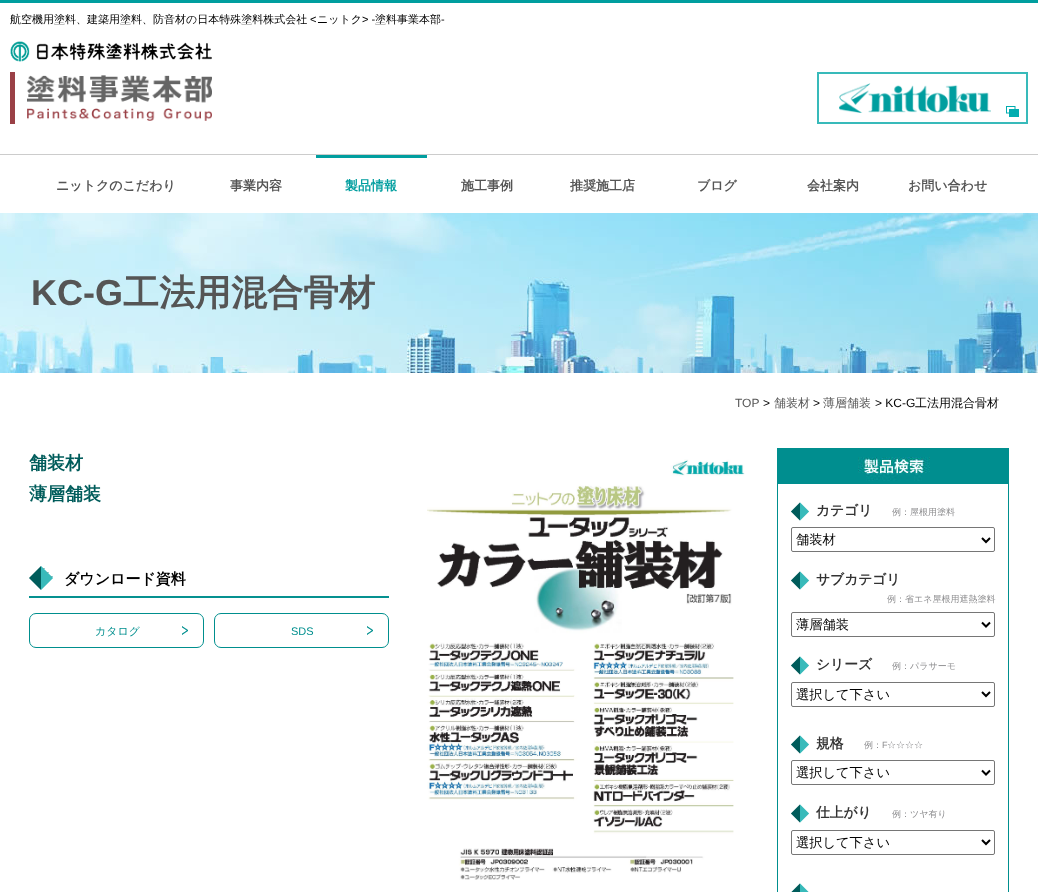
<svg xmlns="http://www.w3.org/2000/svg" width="1038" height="892">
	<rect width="100%" height="100%" fill="#FFFFFF" />
	<rect x="0" y="0" width="1038" height="3" fill="#009E9F" />
	<text x="10" y="23" font-family="WenQuanYi Zen Hei" font-size="11" font-weight="500" fill="#000000">航空機用塗料、建築用塗料、防音材の日本特殊塗料株式会社</text>
	<text x="310" y="23" font-family="Liberation Sans" font-size="11" fill="#000000">&lt;</text>
	<text x="317" y="23" font-family="WenQuanYi Zen Hei" font-size="11" font-weight="500" fill="#000000">ニットク</text>
	<text x="362" y="23" font-family="Liberation Sans" font-size="11" fill="#000000">&gt; -</text>
	<text x="375" y="23" font-family="WenQuanYi Zen Hei" font-size="11" font-weight="500" fill="#000000">塗料事業本部</text>
	<text x="441" y="23" font-family="Liberation Sans" font-size="11" fill="#000000">-</text>
	<image x="10" y="41" width="202" height="21" href="assets/img1.png" />
	<rect x="10" y="72" width="5" height="52" fill="#9A4046" />
	<image x="27" y="75" width="185" height="46" href="assets/img2.png" />
	<image x="1006" y="106" width="13" height="11" href="assets/img3.png" />
	<rect x="818" y="73" width="209" height="50" fill="none" stroke="#38BABA" stroke-width="2" />
	<image x="839" y="83" width="152" height="30" href="assets/img4.png" />
	<rect x="0" y="154" width="1038" height="1" fill="#CCCCCC" />
	<g font-family="WenQuanYi Zen Hei" font-size="13" font-weight="700" fill="#555555">
		<text x="56" y="190">ニットクのこだわり</text>
		<text x="230" y="190">事業内容</text>
	</g>
	<rect x="316" y="155" width="111" height="3" fill="#009E9F" />
	<text x="345" y="190" font-family="WenQuanYi Zen Hei" font-size="13" font-weight="700" fill="#009E9F">製品情報</text>
	<g font-family="WenQuanYi Zen Hei" font-size="13" font-weight="700" fill="#555555">
		<text x="461" y="190">施工事例</text>
		<text x="570" y="190">推奨施工店</text>
		<text x="697" y="190">ブログ</text>
		<text x="807" y="190">会社案内</text>
		<text x="908" y="190">お問い合わせ</text>
	</g>
	<image x="0" y="213" width="1038" height="160" href="assets/img5.png" />
	<text x="31" y="305" font-family="Liberation Sans" font-size="36" font-weight="700" fill="#555555">KC-G</text>
	<text x="123" y="305" font-family="WenQuanYi Zen Hei" font-size="36" font-weight="700" fill="#555555">工法用混合骨材</text>
	<text x="735" y="407" font-family="Liberation Sans" font-size="12" fill="#555555">TOP</text>
	<text x="763" y="407" font-family="Liberation Sans" font-size="12" fill="#000000">&gt;</text>
	<text x="774" y="407" font-family="WenQuanYi Zen Hei" font-size="12" font-weight="500" fill="#555555">舗装材</text>
	<text x="813" y="407" font-family="Liberation Sans" font-size="12" fill="#000000">&gt;</text>
	<text x="823" y="407" font-family="WenQuanYi Zen Hei" font-size="12" font-weight="500" fill="#555555">薄層舗装</text>
	<text x="875" y="407" font-family="Liberation Sans" font-size="12" fill="#000000">&gt; KC-G</text>
	<text x="915" y="407" font-family="WenQuanYi Zen Hei" font-size="12" font-weight="500" fill="#000000">工法用混合骨材</text>
	<g font-family="WenQuanYi Zen Hei" font-size="18" font-weight="700" fill="#005C5B">
		<text x="29" y="469">舗装材</text>
		<text x="29" y="500">薄層舗装</text>
	</g>
	<image x="29" y="566" width="24" height="24" href="assets/img6.png" />
	<rect x="29" y="596" width="360" height="2" fill="#059190" />
	<text x="64" y="584" font-family="WenQuanYi Zen Hei" font-size="15" font-weight="700" fill="#000000">ダウンロード資料</text>
	<rect x="29.5" y="613.5" width="174" height="34" rx="6.5" fill="none" stroke="#008F8E" />
	<image x="182" y="626" width="6" height="9" href="assets/img7.png" />
	<text x="95" y="635" font-family="WenQuanYi Zen Hei" font-size="11" font-weight="500" fill="#008F8E">カタログ</text>
	<rect x="214.5" y="613.5" width="174" height="34" rx="6.5" fill="none" stroke="#008F8E" />
	<image x="367" y="626" width="6" height="9" href="assets/img7.png" />
	<text x="291" y="635" font-family="Liberation Sans" font-size="11" fill="#008F8E">SDS</text>
	<image x="427" y="459" width="318" height="421" href="assets/img8.png" />
	<rect x="777.5" y="448.5" width="231" height="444" fill="none" stroke="#008F8E" />
	<image x="778" y="449" width="230" height="35" href="assets/img9.png" />
	<image x="791" y="502" width="18" height="19" href="assets/img10.png" />
	<text x="816" y="515" font-family="WenQuanYi Zen Hei" font-size="13.75" font-weight="700" fill="#333333">カテゴリ</text>
	<text x="892" y="515" font-family="WenQuanYi Zen Hei" font-size="9" font-weight="500" fill="#8E8E90">例：屋根用塗料</text>
	<rect x="791.5" y="527.5" width="203" height="24" rx="1.5" fill="none" stroke="#767676" />
	<path d="M982 538L986 542L990 538" fill="none" stroke="#000000" stroke-width="2" />
	<text x="796" y="544" font-family="WenQuanYi Zen Hei" font-size="13.25" font-weight="500" fill="#000000">舗装材</text>
	<image x="791" y="571" width="18" height="19" href="assets/img10.png" />
	<text x="816" y="584" font-family="WenQuanYi Zen Hei" font-size="13.75" font-weight="700" fill="#333333">サブカテゴリ</text>
	<text x="887" y="602" font-family="WenQuanYi Zen Hei" font-size="9" font-weight="500" fill="#8E8E90">例：省エネ屋根用遮熱塗料</text>
	<rect x="791.5" y="612.5" width="203" height="24" rx="1.5" fill="none" stroke="#767676" />
	<path d="M982 622.5L986 626.5L990 622.5" fill="none" stroke="#000000" stroke-width="2" />
	<text x="796" y="629" font-family="WenQuanYi Zen Hei" font-size="13.25" font-weight="500" fill="#000000">薄層舗装</text>
	<image x="791" y="656" width="18" height="19" href="assets/img10.png" />
	<text x="816" y="669" font-family="WenQuanYi Zen Hei" font-size="13.75" font-weight="700" fill="#333333">シリーズ</text>
	<text x="892" y="669" font-family="WenQuanYi Zen Hei" font-size="9" font-weight="500" fill="#8E8E90">例：パラサーモ</text>
	<rect x="791.5" y="682.5" width="203" height="24" rx="1.5" fill="none" stroke="#767676" />
	<path d="M982 692L986 696L990 692" fill="none" stroke="#000000" stroke-width="2" />
	<text x="796" y="699" font-family="WenQuanYi Zen Hei" font-size="13.25" font-weight="500" fill="#000000">選択して下さい</text>
	<image x="791" y="735" width="18" height="19" href="assets/img10.png" />
	<text x="816" y="748" font-family="WenQuanYi Zen Hei" font-size="13.75" font-weight="700" fill="#333333">規格</text>
	<text x="864" y="748" font-family="WenQuanYi Zen Hei" font-size="9" font-weight="500" fill="#8E8E90">例：</text>
	<text x="882" y="748" font-family="Liberation Sans" font-size="9" fill="#8E8E90">F</text>
	<text x="887" y="748" font-family="WenQuanYi Zen Hei" font-size="9" font-weight="500" fill="#8E8E90">☆☆☆☆</text>
	<rect x="791.5" y="760.5" width="203" height="24" rx="1.5" fill="none" stroke="#767676" />
	<path d="M982 770.5L986 774.5L990 770.5" fill="none" stroke="#000000" stroke-width="2" />
	<text x="796" y="777" font-family="WenQuanYi Zen Hei" font-size="13.25" font-weight="500" fill="#000000">選択して下さい</text>
	<image x="791" y="804" width="18" height="19" href="assets/img10.png" />
	<text x="816" y="817" font-family="WenQuanYi Zen Hei" font-size="13.75" font-weight="700" fill="#333333">仕上がり</text>
	<text x="892" y="817" font-family="WenQuanYi Zen Hei" font-size="9" font-weight="500" fill="#8E8E90">例：ツヤ有り</text>
	<rect x="791.5" y="830.5" width="203" height="24" rx="1.5" fill="none" stroke="#767676" />
	<path d="M982 840L986 844L990 840" fill="none" stroke="#000000" stroke-width="2" />
	<text x="796" y="847" font-family="WenQuanYi Zen Hei" font-size="13.25" font-weight="500" fill="#000000">選択して下さい</text>
	<image x="791" y="883" width="18" height="9" href="assets/img11.png" />
</svg>
